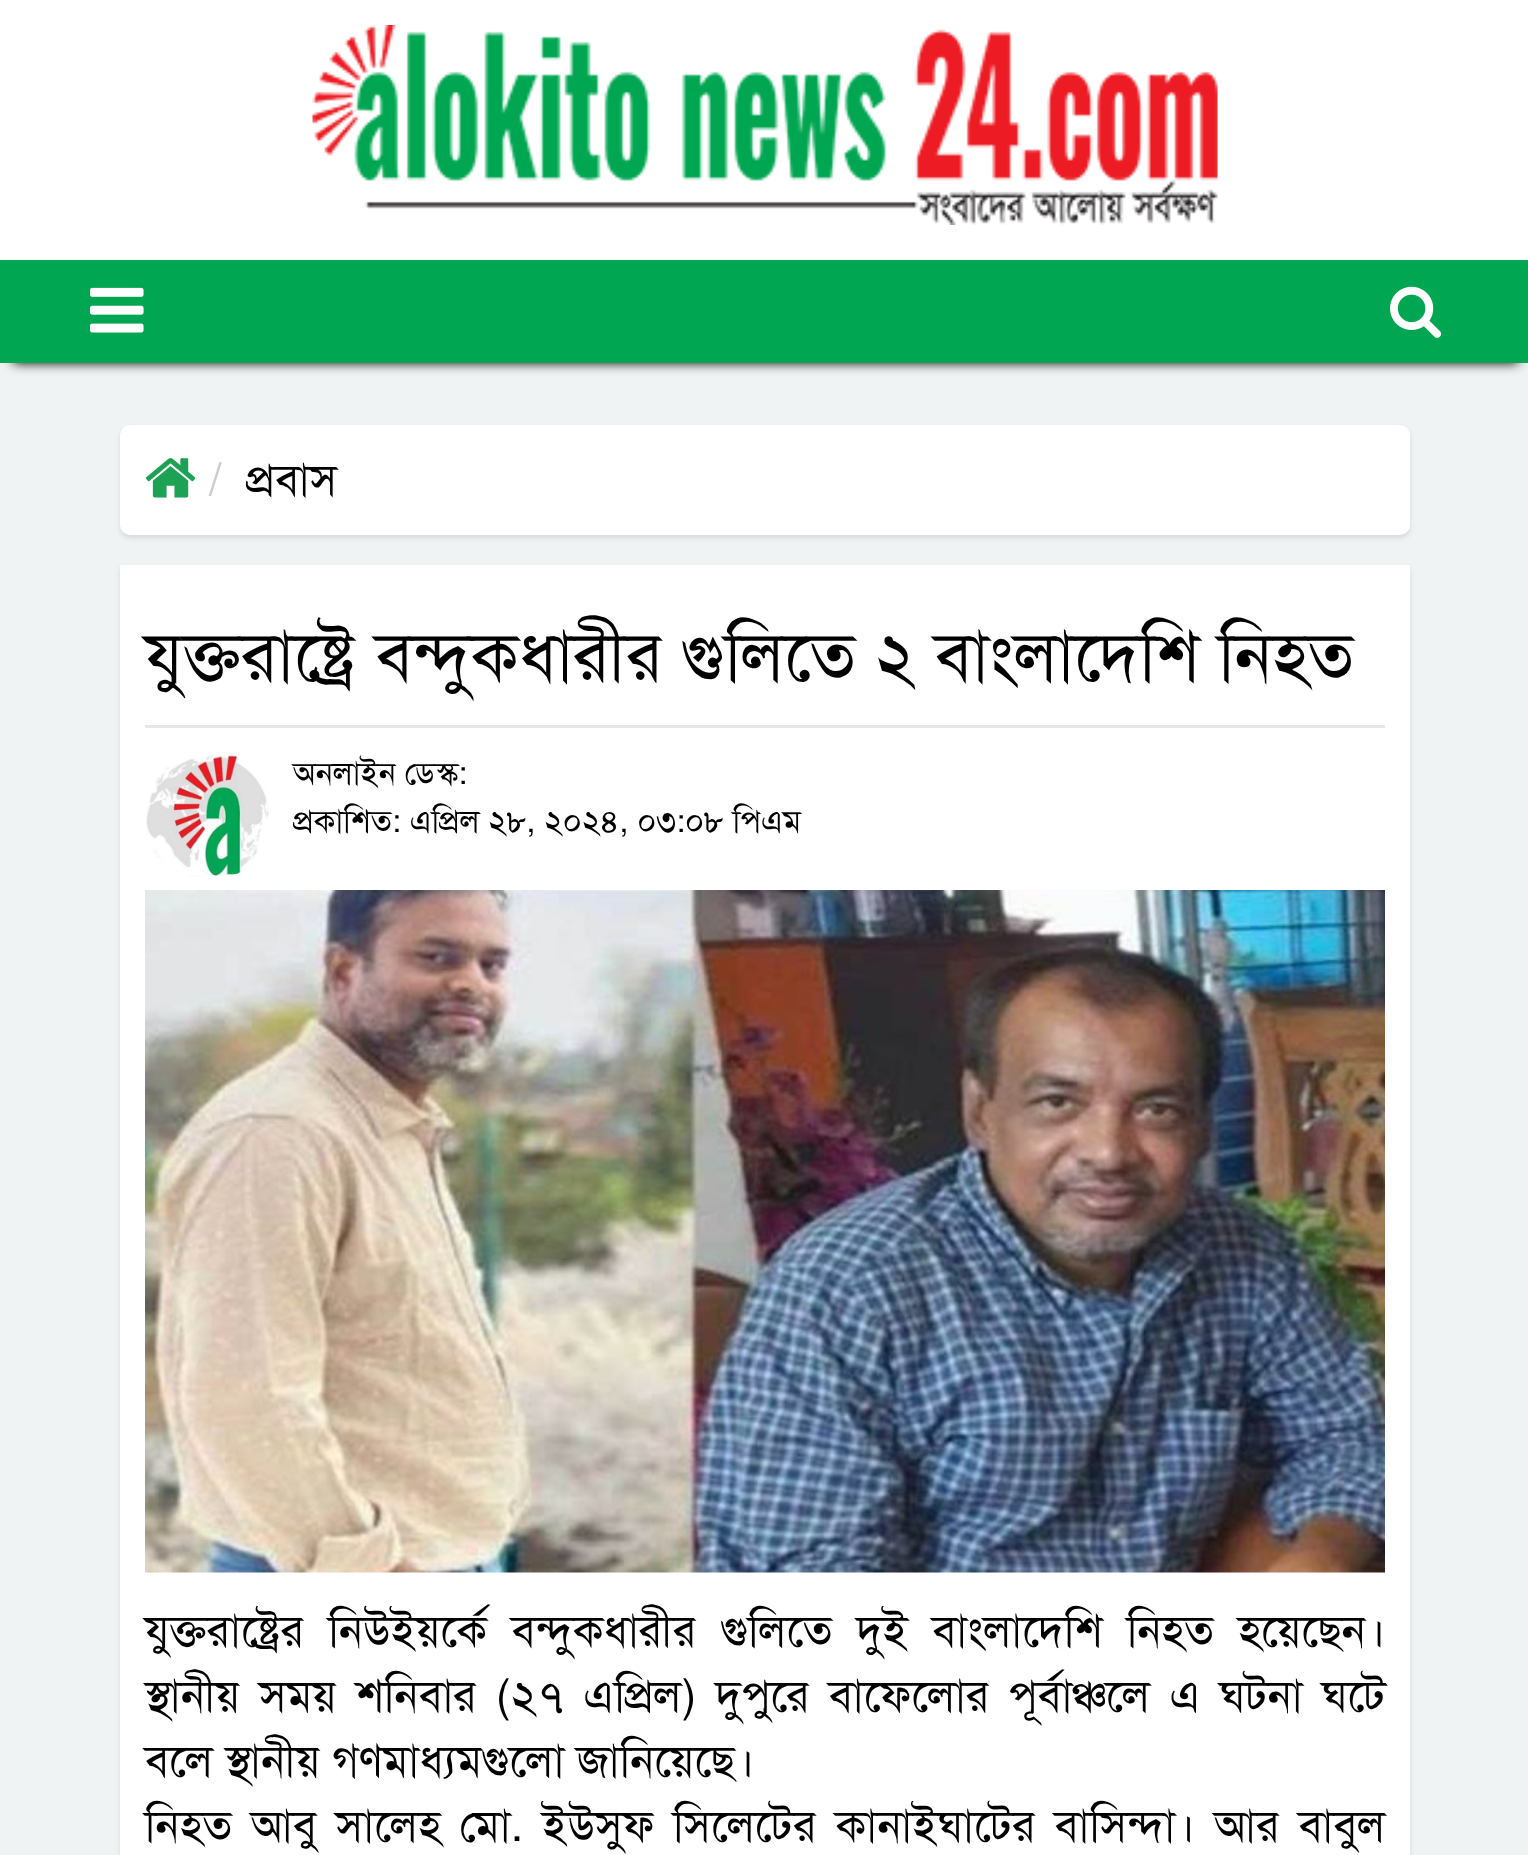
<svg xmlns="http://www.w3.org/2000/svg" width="1528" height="1855">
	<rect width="100%" height="100%" fill="#EFF3F4" />
	<rect x="0" y="0" width="1528" height="260" fill="#FFFFFF" />
	<image x="312" y="25" width="906" height="200" href="assets/img1.png" />
	<rect x="13" y="285" width="1505" height="78" fill="#000000" filter="blur(6px)" />
	<rect x="0" y="260" width="1528" height="103" fill="#00A651" />
	<image x="90" y="287" width="54" height="46" href="assets/img2.png" />
	<image x="1390" y="286" width="52" height="52" href="assets/img3.png" />
	<rect x="120" y="428" width="1290" height="110" rx="10" fill="#000000" fill-opacity="0.1" filter="blur(2.5px)" />
	<rect x="120" y="425" width="1290" height="110" rx="10" fill="#FFFFFF" />
	<image x="145" y="458" width="51" height="40" href="assets/img4.png" />
	<text x="209" y="495" font-family="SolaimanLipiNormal" font-size="45" fill="#CCCCCC">/</text>
	<text x="246" y="495" font-family="SolaimanLipiNormal" font-size="45" fill="#000000">প্রবাস</text>
	<rect x="120" y="568" width="1290" height="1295" fill="#000000" fill-opacity="0.1" filter="blur(2.5px)" />
	<rect x="120" y="565" width="1290" height="1290" fill="#FFFFFF" />
	<text x="145" y="680" font-family="SolaimanLipiNormal" font-size="70" fill="#000000">যুক্তরাষ্ট্রে বন্দুকধারীর গুলিতে ২ বাংলাদেশি নিহত</text>
	<rect x="145" y="725" width="1240" height="3" fill="#E6E6E6" />
	<image x="146" y="754" width="123" height="123" href="assets/img5.png" />
	<g font-family="SolaimanLipiNormal" font-size="32" fill="#000000">
		<text x="293" y="784">অনলাইন ডেস্ক:</text>
		<text x="293" y="832">প্রকাশিত: এপ্রিল ২৮, ২০২৪, ০৩:০৮ পিএম</text>
	</g>
	<image x="145" y="890" width="1240" height="683" href="assets/img6.png" />
	<g font-family="SolaimanLipiNormal" font-size="45" fill="#000000">
		<text x="145" y="1646" word-spacing="12">যুক্তরাষ্ট্রের নিউইয়র্কে বন্দুকধারীর গুলিতে দুই বাংলাদেশি নিহত হয়েছেন।</text>
		<text x="145" y="1711" word-spacing="6.75">স্থানীয় সময় শনিবার (২৭ এপ্রিল) দুপুরে বাফেলোর পূর্বাঞ্চলে এ ঘটনা ঘটে</text>
		<text x="145" y="1776">বলে স্থানীয় গণমাধ্যমগুলো জানিয়েছে।</text>
		<text x="145" y="1841" word-spacing="6.5">নিহত আবু সালেহ মো. ইউসুফ সিলেটের কানাইঘাটের বাসিন্দা। আর বাবুল</text>
	</g>
</svg>
